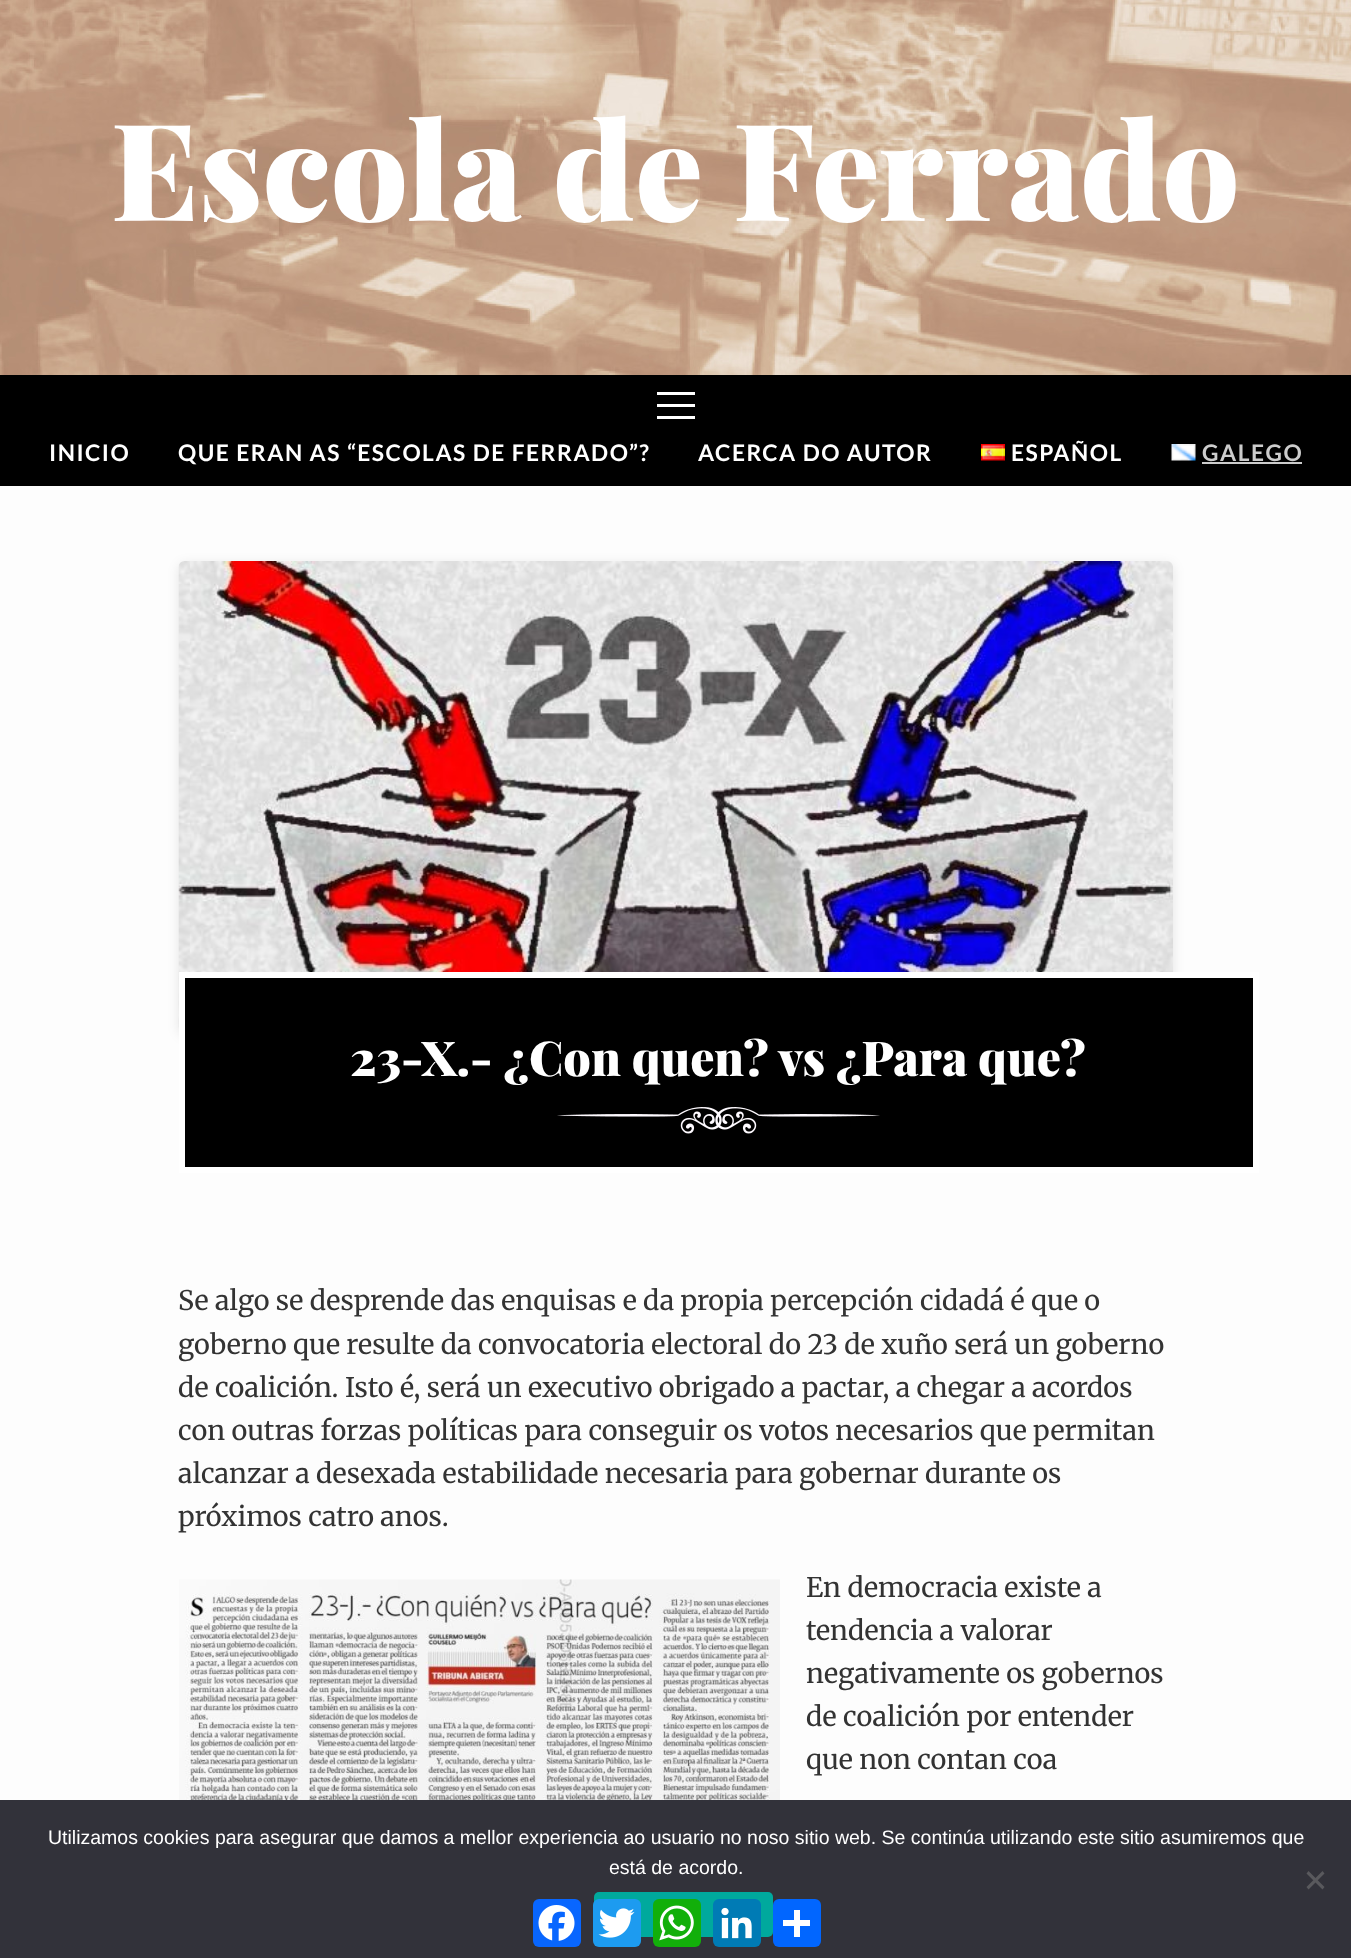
<svg xmlns="http://www.w3.org/2000/svg" width="1351" height="1958">
	<rect width="100%" height="100%" fill="#FDFDFD" />
	<image x="0" y="0" width="1351" height="375" href="assets/img1.png" />
	<text x="111" y="221" font-family="Playfair Display" font-size="135" font-weight="900" fill="#FFFFFF">Escola de Ferrado</text>
	<rect x="0" y="375" width="1351" height="111" fill="#000000" />
	<rect x="657" y="392" width="38" height="3" fill="#FFFFFF" />
	<rect x="657" y="404" width="38" height="3" fill="#FFFFFF" />
	<rect x="657" y="416" width="38" height="3" fill="#FFFFFF" />
	<g font-family="Lato" font-size="22.8" font-weight="700" letter-spacing="1.5" fill="#FFFFFF">
		<text x="49" y="461">INICIO</text>
		<text x="178" y="461">QUE ERAN AS “ESCOLAS DE FERRADO”?</text>
		<text x="698" y="461">ACERCA DO AUTOR</text>
	</g>
	<image x="981" y="444" width="24" height="17" href="assets/img2.png" />
	<text x="1011" y="461" font-family="Lato" font-size="22.8" font-weight="700" letter-spacing="1.5" fill="#FFFFFF">ESPAÑOL</text>
	<image x="1171" y="444" width="25" height="17" href="assets/img3.png" />
	<text x="1202" y="461" font-family="Lato" font-size="22.8" font-weight="700" letter-spacing="1.5" fill="#CCCCCC">GALEGO</text>
	<rect x="1202" y="462" width="100" height="2" fill="#CCCCCC" />
	<rect x="179" y="564" width="994" height="471" rx="6" fill="#000000" fill-opacity="0.1" filter="blur(6px)" />
	<image x="178" y="561" width="995" height="467" href="assets/img4.png" />
	<rect x="182" y="975" width="1074" height="195" fill="#000000" stroke="#FFFFFF" stroke-width="6" />
	<text x="350" y="1076" font-family="Playfair Display" font-size="48" font-weight="900" fill="#FFFFFF">23-X.- ¿Con quen? vs ¿Para que?</text>
	<image x="557" y="1107" width="323" height="27" href="assets/img5.png" />
	<g font-family="Merriweather" font-size="27" font-weight="300" fill="#333333">
		<text x="178" y="1310">Se algo se desprende das enquisas e da propia percepción cidadá é que o</text>
		<text x="178" y="1354">goberno que resulte da convocatoria electoral do 23 de xuño será un goberno</text>
		<text x="178" y="1397">de coalición. Isto é, será un executivo obrigado a pactar, a chegar a acordos</text>
		<text x="178" y="1440">con outras forzas políticas para conseguir os votos necesarios que permitan</text>
		<text x="178" y="1483">alcanzar a desexada estabilidade necesaria para gobernar durante os</text>
		<text x="178" y="1526">próximos catro anos.</text>
	</g>
	<image x="179" y="1579" width="601" height="221" href="assets/img6.png" />
	<g font-family="Merriweather" font-size="27" font-weight="300" fill="#333333">
		<text x="806" y="1597">En democracia existe a</text>
		<text x="806" y="1640">tendencia a valorar</text>
		<text x="806" y="1683">negativamente os gobernos</text>
		<text x="806" y="1726">de coalición por entender</text>
		<text x="806" y="1769">que non contan coa</text>
	</g>
	<rect x="0" y="1800" width="1351" height="158" fill="#32323A" />
	<g font-family="Liberation Sans" font-size="19.5" fill="#FFFFFF">
		<text x="48" y="1844">Utilizamos cookies para asegurar que damos a mellor experiencia ao usuario no noso sitio web. Se continúa utilizando este sitio asumiremos que</text>
		<text x="609" y="1874">está de acordo.</text>
	</g>
	<path d="M1322.5 1871L1324.5 1873.5L1308.5 1889.5L1306.5 1887Z" fill="#59595D" />
	<path d="M1306.5 1873.5L1308.5 1871L1324.5 1887L1322.5 1889.5Z" fill="#59595D" />
	<rect x="594" y="1892" width="179" height="45" rx="5" fill="#00A99D" />
	<rect x="533" y="1899" width="48" height="48" rx="6" fill="#0866FF" />
	<image x="538" y="1905" width="37" height="36" href="assets/img7.png" />
	<rect x="593" y="1899" width="48" height="48" rx="6" fill="#1D9BF0" />
	<image x="598" y="1908" width="37" height="30" href="assets/img8.png" />
	<rect x="653" y="1899" width="48" height="48" rx="6" fill="#12AF0A" />
	<image x="659" y="1905" width="35" height="36" href="assets/img9.png" />
	<rect x="713" y="1899" width="48" height="48" rx="6" fill="#007BB5" />
	<image x="721" y="1907" width="31" height="32" href="assets/img10.png" />
	<rect x="773" y="1899" width="48" height="48" rx="6" fill="#0166FF" />
	<rect x="794" y="1910" width="6" height="27" fill="#FFFFFF" />
	<rect x="783" y="1920" width="27" height="6" fill="#FFFFFF" />
</svg>
